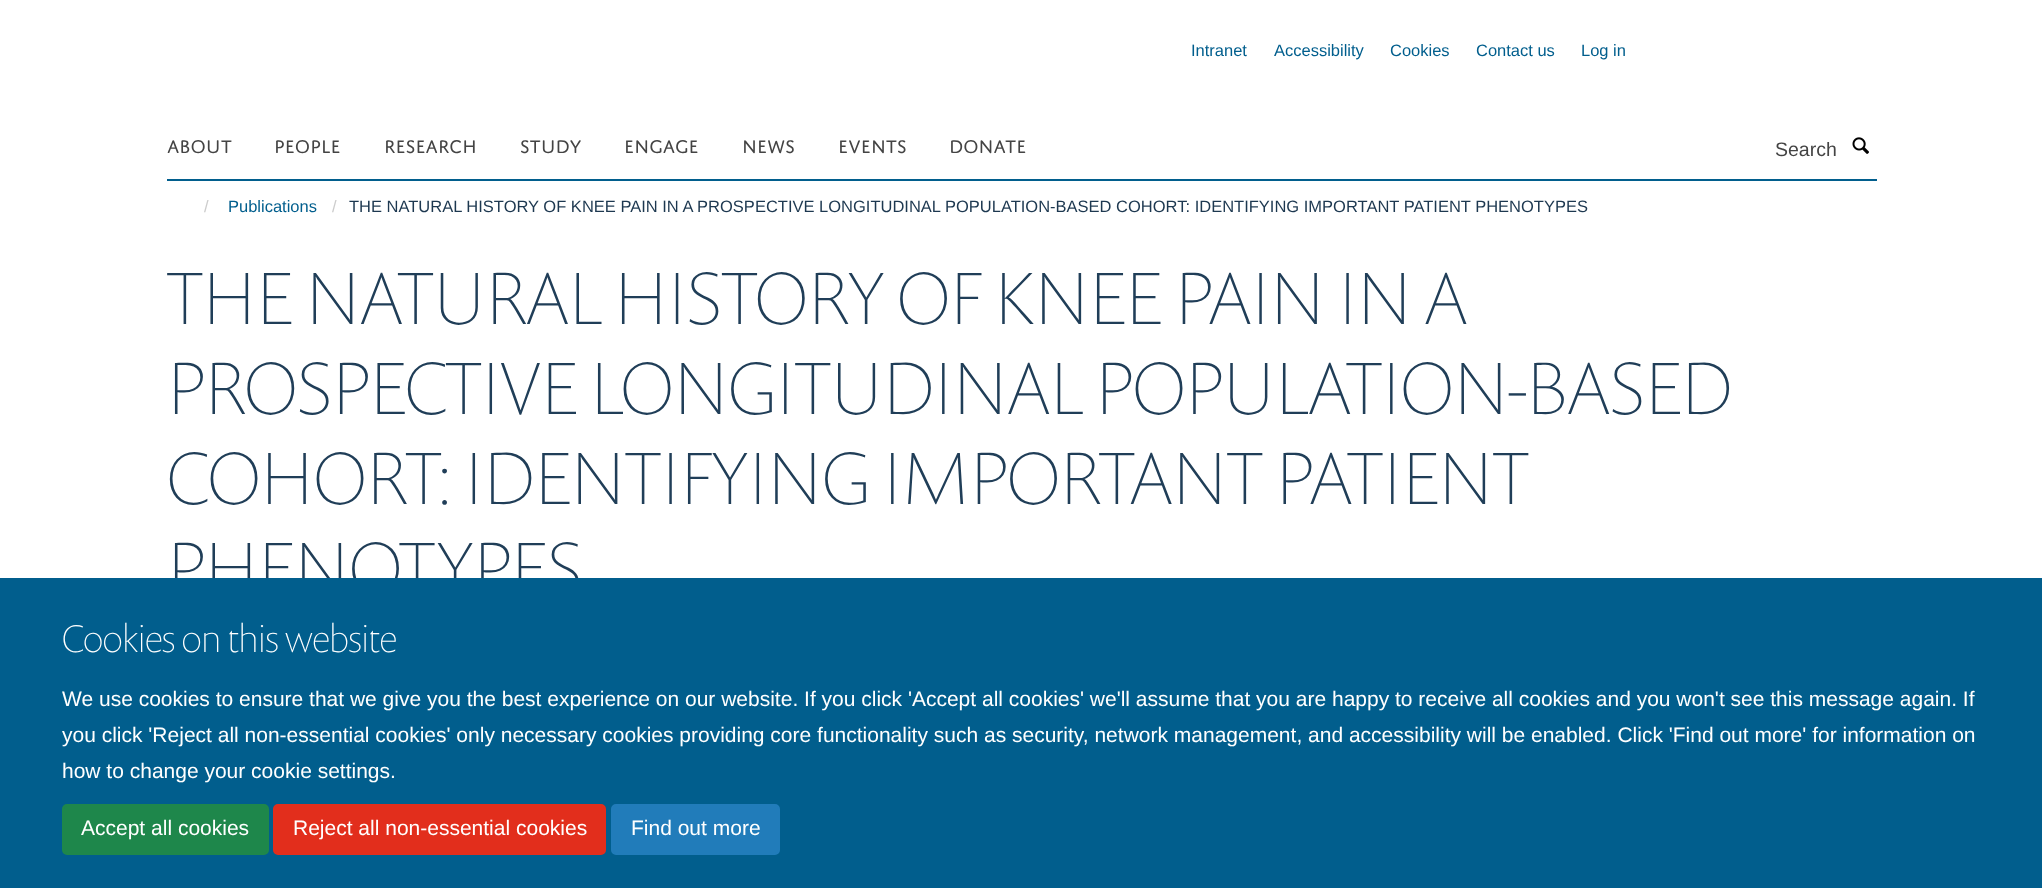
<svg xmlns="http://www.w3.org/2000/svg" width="2042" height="888">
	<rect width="100%" height="100%" fill="#FFFFFF" />
	<g font-family="Liberation Sans" font-size="16.5" fill="#015E8D">
		<text x="1191" y="56">Intranet</text>
		<text x="1274" y="56">Accessibility</text>
		<text x="1390" y="56">Cookies</text>
		<text x="1476" y="56">Contact us</text>
		<text x="1581" y="56">Log in</text>
	</g>
	<rect x="167" y="179" width="1710" height="2" fill="#015E8D" />
	<g font-family="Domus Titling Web" font-size="19.5" fill="#444444">
		<text x="167" y="153">ABOUT</text>
		<text x="274" y="153">PEOPLE</text>
		<text x="384" y="153">RESEARCH</text>
		<text x="520" y="153">STUDY</text>
		<text x="624" y="153">ENGAGE</text>
		<text x="742" y="153">NEWS</text>
		<text x="838" y="153">EVENTS</text>
		<text x="949" y="153">DONATE</text>
	</g>
	<text x="1775" y="156" font-family="Liberation Sans" font-size="19.5" fill="#444444">Search</text>
	<image x="1852" y="137" width="17" height="17" href="assets/img1.png" />
	<text x="204" y="212" font-family="Liberation Sans" font-size="16.5" fill="#CCCCCC">/</text>
	<text x="228" y="212" font-family="Liberation Sans" font-size="16.5" fill="#015E8D">Publications</text>
	<text x="332" y="212" font-family="Liberation Sans" font-size="16.5" fill="#CCCCCC">/</text>
	<text x="349" y="212" font-family="Liberation Sans" font-size="16.5" fill="#1D3850">THE NATURAL HISTORY OF KNEE PAIN IN A PROSPECTIVE LONGITUDINAL POPULATION-BASED COHORT: IDENTIFYING IMPORTANT PATIENT PHENOTYPES</text>
	<g font-family="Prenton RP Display" font-size="75" font-weight="100" fill="#203E58">
		<text x="167" y="324">THE NATURAL HISTORY OF KNEE PAIN IN A</text>
		<text x="167" y="414">PROSPECTIVE LONGITUDINAL POPULATION-BASED</text>
		<text x="167" y="504">COHORT: IDENTIFYING IMPORTANT PATIENT</text>
		<text x="167" y="594">PHENOTYPES</text>
	</g>
	<rect x="0" y="578" width="2042" height="310" fill="#015E8D" />
	<text x="62" y="652" font-family="Prenton RP Display" font-size="39" font-weight="100" fill="#FFFFFF">Cookies on this website</text>
	<g font-family="Liberation Sans" font-size="21" fill="#FFFFFF">
		<text x="62" y="706">We use cookies to ensure that we give you the best experience on our website. If you click 'Accept all cookies' we'll assume that you are happy to receive all cookies and you won't see this message again. If</text>
		<text x="62" y="742">you click 'Reject all non-essential cookies' only necessary cookies providing core functionality such as security, network management, and accessibility will be enabled. Click 'Find out more' for information on</text>
		<text x="62" y="778">how to change your cookie settings.</text>
	</g>
	<rect x="63" y="805" width="205" height="49" rx="4" fill="#1E874B" stroke="#1E874B" stroke-width="2" />
	<text x="81" y="835" font-family="Liberation Sans" font-size="21" fill="#FFFFFF">Accept all cookies</text>
	<rect x="274" y="805" width="331" height="49" rx="4" fill="#E22E1C" stroke="#E22E1C" stroke-width="2" />
	<text x="293" y="835" font-family="Liberation Sans" font-size="21" fill="#FFFFFF">Reject all non-essential cookies</text>
	<rect x="612" y="805" width="167" height="49" rx="4" fill="#217CBA" stroke="#217CBA" stroke-width="2" />
	<text x="631" y="835" font-family="Liberation Sans" font-size="21" fill="#FFFFFF">Find out more</text>
</svg>
